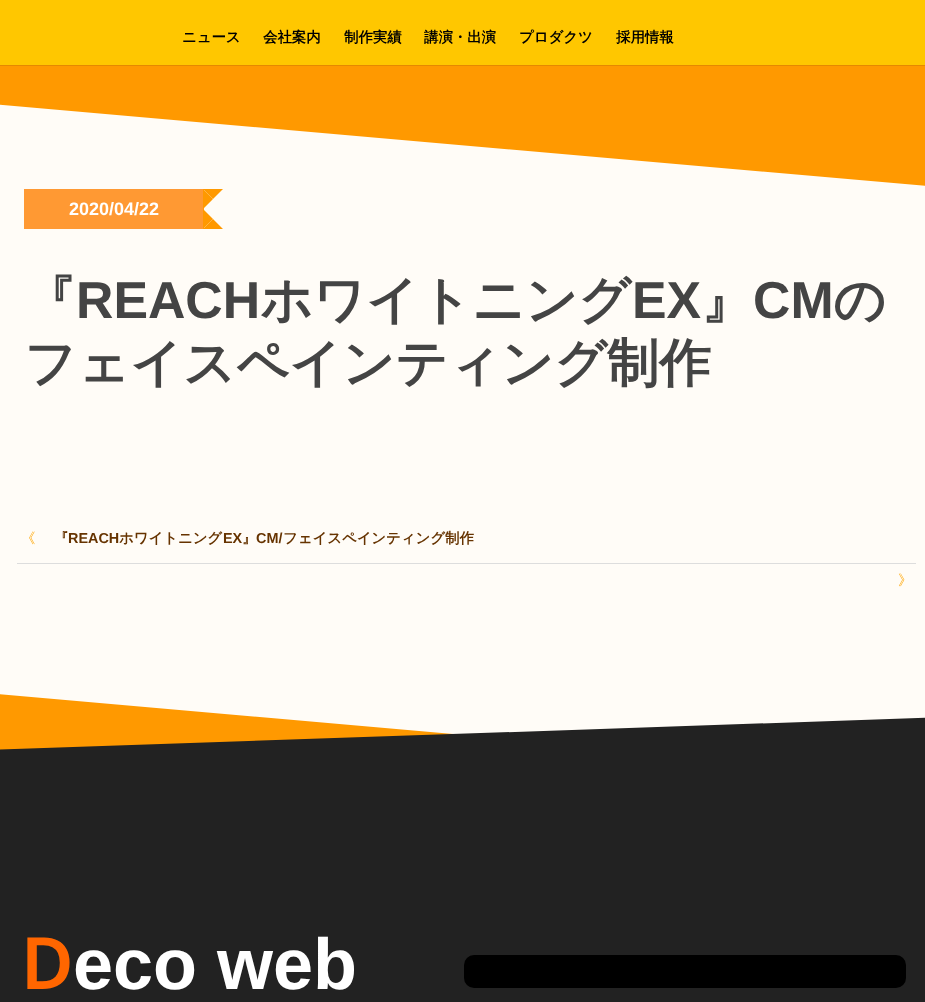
<svg xmlns="http://www.w3.org/2000/svg" width="925" height="1002">
	<rect width="100%" height="100%" fill="#FF9900" />
	<rect x="0" y="1" width="925" height="65" fill="#000000" fill-opacity="0.1" filter="blur(0.5px)" />
	<rect x="0" y="0" width="925" height="65" fill="#FFC700" />
	<g font-family="WenQuanYi Zen Hei" font-size="14.4" font-weight="700" fill="#000000">
		<text x="182" y="42">ニュース</text>
		<text x="263" y="42">会社案内</text>
		<text x="344" y="42">制作実績</text>
		<text x="424" y="42">講演・出演</text>
		<text x="519" y="42">プロダクツ</text>
		<text x="616" y="42">採用情報</text>
	</g>
	<path d="M-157 91L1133 204L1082 789L-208 676Z" fill="#FFFCF7" />
	<rect x="24" y="189" width="180" height="40" fill="#FF9933" />
	<text x="69" y="215" font-family="Liberation Sans" font-size="18" font-weight="700" fill="#FFFFFF">2020/04/22</text>
	<path d="M203 189H223L213 199Z" fill="#FF9900" />
	<path d="M203 209V189L213 199ZM223 229H203L213 219Z" fill="#FF9900" />
	<path d="M203 229V209L213 219Z" fill="#FF9900" />
	<text x="24" y="318" font-family="WenQuanYi Zen Hei" font-size="51.8" font-weight="700" fill="#444444">『</text>
	<text x="76" y="318" font-family="Liberation Sans" font-size="51.8" font-weight="700" fill="#444444">REACH</text>
	<text x="260" y="318" font-family="WenQuanYi Zen Hei" font-size="51.8" font-weight="700" fill="#444444">ホワイトニング</text>
	<text x="632" y="318" font-family="Liberation Sans" font-size="51.8" font-weight="700" fill="#444444">EX</text>
	<text x="701" y="318" font-family="WenQuanYi Zen Hei" font-size="51.8" font-weight="700" fill="#444444">』</text>
	<text x="753" y="318" font-family="Liberation Sans" font-size="51.8" font-weight="700" fill="#444444">CM</text>
	<g font-family="WenQuanYi Zen Hei" font-size="51.8" font-weight="700" fill="#444444">
		<text x="833" y="318">の</text>
		<text x="24" y="381">フェイスペインティング制作</text>
	</g>
	<text x="21" y="543" font-family="WenQuanYi Zen Hei" font-size="14.4" font-weight="500" fill="#FFA500">《</text>
	<text x="54" y="543" font-family="WenQuanYi Zen Hei" font-size="14.4" font-weight="700" fill="#663300">『</text>
	<text x="68" y="543" font-family="Liberation Sans" font-size="14.4" font-weight="700" fill="#663300">REACH</text>
	<text x="119" y="543" font-family="WenQuanYi Zen Hei" font-size="14.4" font-weight="700" fill="#663300">ホワイトニング</text>
	<text x="223" y="543" font-family="Liberation Sans" font-size="14.4" font-weight="700" fill="#663300">EX</text>
	<text x="242" y="543" font-family="WenQuanYi Zen Hei" font-size="14.4" font-weight="700" fill="#663300">』</text>
	<text x="256" y="543" font-family="Liberation Sans" font-size="14.4" font-weight="700" fill="#663300">CM/</text>
	<text x="283" y="543" font-family="WenQuanYi Zen Hei" font-size="14.4" font-weight="700" fill="#663300">フェイスペインティング制作</text>
	<rect x="17" y="563" width="899" height="1" fill="#DDDDDD" />
	<text x="898" y="585" font-family="WenQuanYi Zen Hei" font-size="14.4" font-weight="500" fill="#FFA500">》</text>
	<path d="M-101 753L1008 715L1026 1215L-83 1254Z" fill="#222222" />
	<text x="21" y="989" font-family="Noto Sans" font-size="72" font-weight="600" fill="#FF6600">D</text>
	<text x="73" y="989" font-family="Liberation Sans" font-size="72" font-weight="700" fill="#FFFFFF">eco web</text>
	<rect x="464" y="955" width="442" height="33" rx="10" fill="#000000" />
</svg>
